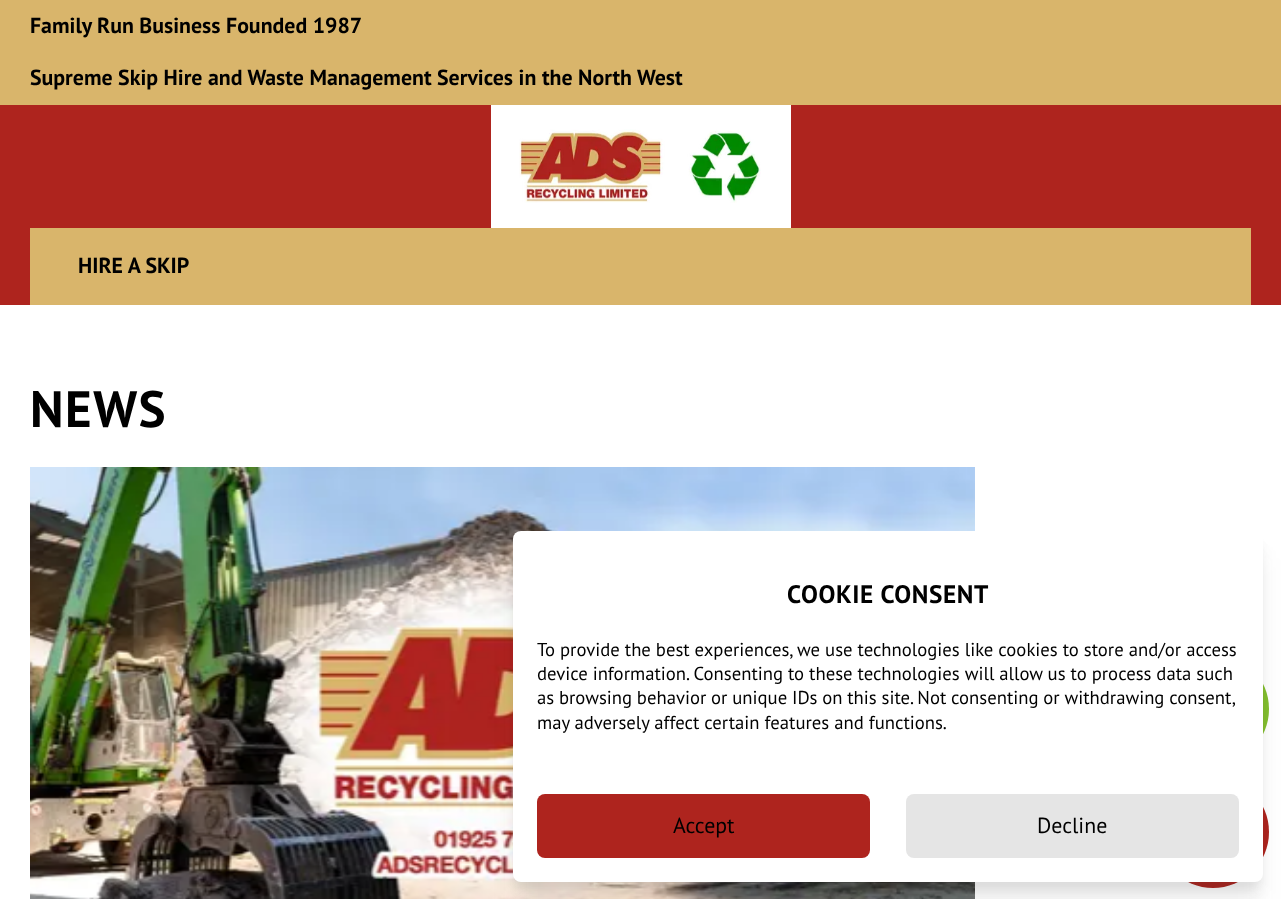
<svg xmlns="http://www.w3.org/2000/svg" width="1281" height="899">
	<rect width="100%" height="100%" fill="#FFFFFF" />
	<rect x="0" y="105" width="1281" height="200" fill="#AE241E" />
	<rect x="0" y="0" width="1281" height="105" fill="#D9B56B" />
	<g font-family="PT Sans" font-size="21.85" font-weight="700" fill="#000000">
		<text x="30" y="33">Family Run Business Founded 1987</text>
		<text x="30" y="85">Supreme Skip Hire and Waste Management Services in the North West</text>
	</g>
	<rect x="491" y="105" width="300" height="123" fill="#FFFFFF" />
	<image x="519" y="129" width="242" height="74" href="assets/img1.png" />
	<rect x="30" y="228" width="1221" height="77" fill="#D9B56B" />
	<text x="78" y="273" font-family="PT Sans" font-size="21.85" font-weight="700" fill="#000000">HIRE A SKIP</text>
	<text x="30" y="427" font-family="PT Sans" font-size="51" font-weight="700" letter-spacing="1.5" fill="#000000">NEWS</text>
	<image x="30" y="467" width="945" height="432" href="assets/img2.png" />
	<circle cx="1213" cy="709" r="56" fill="#83BF2E" />
	<circle cx="1213" cy="832" r="56" fill="#AE241E" />
	<rect x="516" y="558" width="744" height="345" rx="5" fill="#252627" fill-opacity="0.07" filter="blur(12px)" />
	<rect x="516" y="548" width="744" height="345" rx="5" fill="#252627" fill-opacity="0.06" filter="blur(7px)" />
	<rect x="516" y="542" width="744" height="345" rx="5" fill="#252627" fill-opacity="0.05" filter="blur(4px)" />
	<rect x="513" y="531" width="750" height="351" rx="8" fill="#FFFFFF" />
	<text x="787" y="603" font-family="PT Sans" font-size="25.25" font-weight="700" letter-spacing="0.6" fill="#000000">COOKIE CONSENT</text>
	<g font-family="PT Sans" font-size="18.7" fill="#000000">
		<text x="537" y="656">To provide the best experiences, we use technologies like cookies to store and/or access</text>
		<text x="537" y="680">device information. Consenting to these technologies will allow us to process data such</text>
		<text x="537" y="704" word-spacing="-0.2">as browsing behavior or unique IDs on this site. Not consenting or withdrawing consent,</text>
		<text x="537" y="729">may adversely affect certain features and functions.</text>
	</g>
	<rect x="537" y="794" width="333" height="64" rx="8" fill="#AE241E" />
	<text x="673" y="833" font-family="PT Sans" font-size="21.85" fill="#000000">Accept</text>
	<rect x="906" y="794" width="333" height="64" rx="8" fill="#E5E5E5" />
	<text x="1037" y="833" font-family="PT Sans" font-size="21.85" fill="#000000">Decline</text>
</svg>
